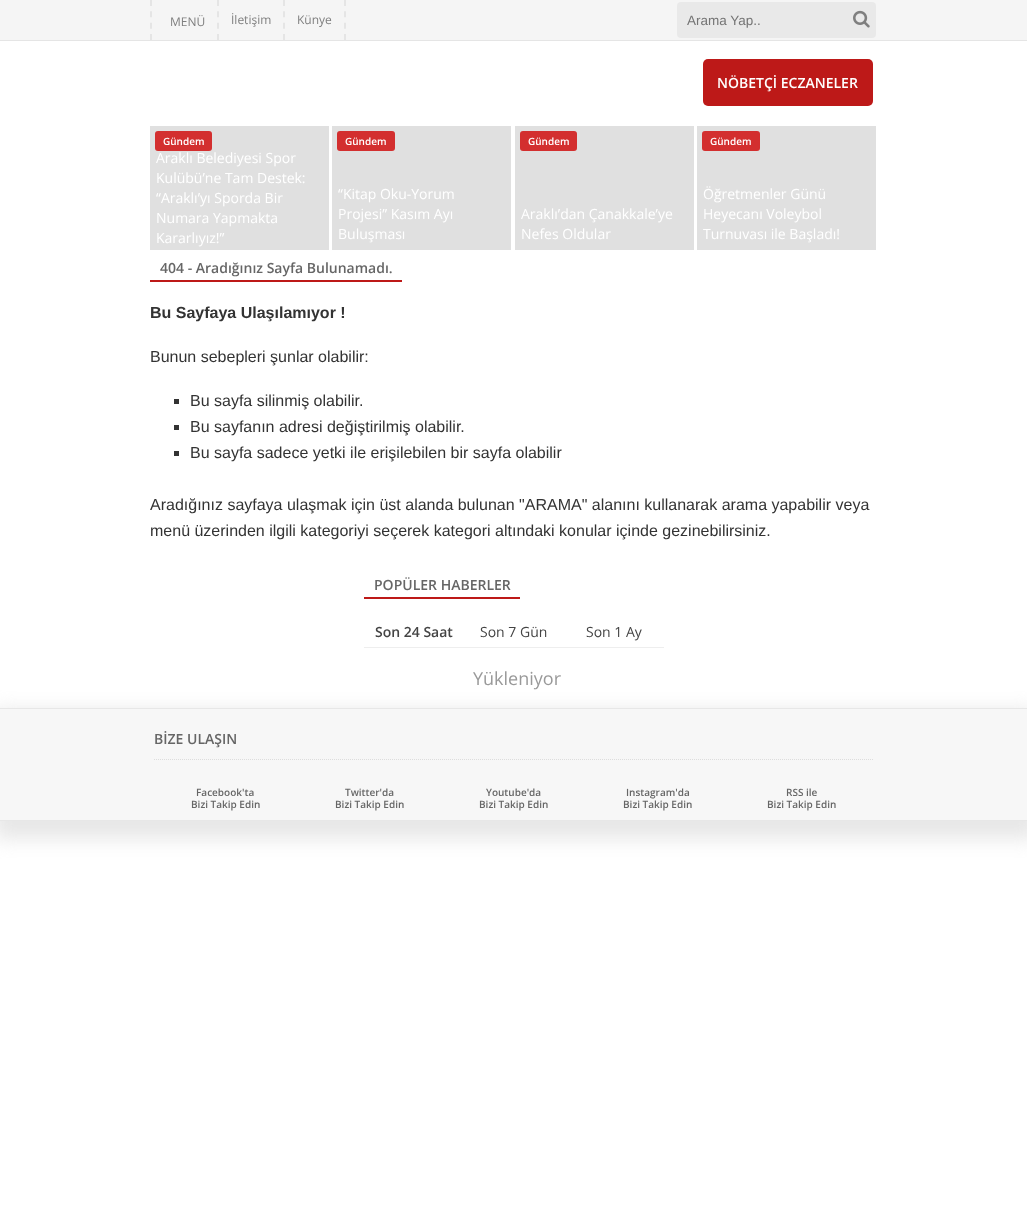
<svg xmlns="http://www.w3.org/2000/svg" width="1027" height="1207">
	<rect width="100%" height="100%" fill="#FFFFFF" />
	<rect x="0" y="0" width="1027" height="40" fill="#F5F5F5" />
	<rect x="0" y="40" width="1027" height="1" fill="#E5E5E5" />
	<path d="M218 0V40" fill="none" stroke="#E5E5E5" stroke-width="2" stroke-dasharray="6 5.33" />
	<path d="M151 0V40" fill="none" stroke="#E5E5E5" stroke-width="2" stroke-dasharray="6 5.33" />
	<text x="170" y="26" font-family="Open Sans" font-size="12" fill="#7F7F7F">MENÜ</text>
	<path d="M284 0V40" fill="none" stroke="#E5E5E5" stroke-width="2" stroke-dasharray="6 5.33" />
	<text x="231" y="24" font-family="Open Sans" font-size="12" fill="#7F7F7F">İletişim</text>
	<path d="M345 0V40" fill="none" stroke="#E5E5E5" stroke-width="2" stroke-dasharray="6 5.33" />
	<text x="297" y="24" font-family="Open Sans" font-size="12" fill="#7F7F7F">Künye</text>
	<rect x="677" y="2" width="199" height="36" rx="4" fill="#E9E9E9" />
	<text x="687" y="25" font-family="Liberation Sans" font-size="13.5" fill="#757575">Arama Yap..</text>
	<image x="853" y="10" width="17" height="18" href="assets/img1.png" />
	<rect x="703" y="59" width="170" height="47" rx="5" fill="#BD1918" />
	<text x="717" y="88" font-family="Open Sans" font-size="14" font-weight="600" fill="#FFFFFF">NÖBETÇİ ECZANELER</text>
	<rect x="150" y="126" width="179" height="124" fill="#E0E0E0" />
	<rect x="155" y="131" width="57" height="20" rx="3" fill="#D32F2F" />
	<text x="163" y="145" font-family="Open Sans" font-size="10" font-weight="600" fill="#FFFFFF">Gündem</text>
	<g font-family="Open Sans" font-size="14" fill="#FFFFFF">
		<text x="156" y="163">Araklı Belediyesi Spor</text>
		<text x="156" y="183">Kulübü’ne Tam Destek:</text>
		<text x="156" y="203">“Araklı’yı Sporda Bir</text>
		<text x="156" y="223">Numara Yapmakta</text>
		<text x="156" y="243">Kararlıyız!”</text>
	</g>
	<rect x="332" y="126" width="179" height="124" fill="#E0E0E0" />
	<rect x="337" y="131" width="58" height="20" rx="3" fill="#D32F2F" />
	<text x="345" y="145" font-family="Open Sans" font-size="10" font-weight="600" fill="#FFFFFF">Gündem</text>
	<g font-family="Open Sans" font-size="14" fill="#FFFFFF">
		<text x="338" y="199">“Kitap Oku-Yorum</text>
		<text x="338" y="219">Projesi” Kasım Ayı</text>
		<text x="338" y="239">Buluşması</text>
	</g>
	<rect x="515" y="126" width="179" height="124" fill="#E0E0E0" />
	<rect x="520" y="131" width="57" height="20" rx="3" fill="#D32F2F" />
	<text x="528" y="145" font-family="Open Sans" font-size="10" font-weight="600" fill="#FFFFFF">Gündem</text>
	<g font-family="Open Sans" font-size="14" fill="#FFFFFF">
		<text x="521" y="219">Araklı’dan Çanakkale’ye</text>
		<text x="521" y="239">Nefes Oldular</text>
	</g>
	<rect x="697" y="126" width="179" height="124" fill="#E0E0E0" />
	<rect x="702" y="131" width="58" height="20" rx="3" fill="#D32F2F" />
	<text x="710" y="145" font-family="Open Sans" font-size="10" font-weight="600" fill="#FFFFFF">Gündem</text>
	<g font-family="Open Sans" font-size="14" fill="#FFFFFF">
		<text x="703" y="199">Öğretmenler Günü</text>
		<text x="703" y="219">Heyecanı Voleybol</text>
		<text x="703" y="239">Turnuvası ile Başladı!</text>
	</g>
	<rect x="150" y="280" width="252" height="2" fill="#BD1918" />
	<text x="160" y="273" font-family="Open Sans" font-size="14" font-weight="600" fill="#666666">404 - Aradığınız Sayfa Bulunamadı.</text>
	<text x="150" y="318" font-family="Liberation Sans" font-size="16" font-weight="700" fill="#333333">Bu Sayfaya Ulaşılamıyor !</text>
	<text x="150" y="362" font-family="Liberation Sans" font-size="16" fill="#333333">Bunun sebepleri şunlar olabilir:</text>
	<rect x="174" y="399" width="5" height="5" fill="#333333" />
	<text x="190" y="406" font-family="Liberation Sans" font-size="16" fill="#333333">Bu sayfa silinmiş olabilir.</text>
	<rect x="174" y="425" width="5" height="5" fill="#333333" />
	<text x="190" y="432" font-family="Liberation Sans" font-size="16" fill="#333333">Bu sayfanın adresi değiştirilmiş olabilir.</text>
	<rect x="174" y="451" width="5" height="5" fill="#333333" />
	<g font-family="Liberation Sans" font-size="16" fill="#333333">
		<text x="190" y="458">Bu sayfa sadece yetki ile erişilebilen bir sayfa olabilir</text>
		<text x="150" y="510">Aradığınız sayfaya ulaşmak için üst alanda bulunan "ARAMA" alanını kullanarak arama yapabilir veya</text>
		<text x="150" y="536">menü üzerinden ilgili kategoriyi seçerek kategori altındaki konular içinde gezinebilirsiniz.</text>
	</g>
	<rect x="364" y="597" width="156" height="2" fill="#BD1918" />
	<text x="374" y="590" font-family="Open Sans" font-size="14" font-weight="600" fill="#666666">POPÜLER HABERLER</text>
	<rect x="364" y="647" width="300" height="1" fill="#EEEEEE" />
	<text x="375" y="637" font-family="Open Sans" font-size="14" font-weight="600" fill="#444444">Son 24 Saat</text>
	<g font-family="Open Sans" font-size="14" fill="#444444">
		<text x="480" y="637">Son 7 Gün</text>
		<text x="586" y="637">Son 1 Ay</text>
	</g>
	<rect x="-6" y="710" width="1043" height="129" fill="#E7E7E7" filter="blur(9.5px)" />
	<text x="473" y="685" font-family="Open Sans" font-size="18" fill="#999999">Yükleniyor</text>
	<rect x="0" y="709" width="1027" height="111" fill="#F7F7F7" />
	<rect x="0" y="708" width="1027" height="1" fill="#E7E7E7" />
	<rect x="0" y="820" width="1027" height="1" fill="#E7E7E7" />
	<path d="M154 759.5H874" fill="none" stroke="#DDDDDD" stroke-dasharray="1 1" />
	<text x="154" y="744" font-family="Open Sans" font-size="14" font-weight="600" fill="#666666">BİZE ULAŞIN</text>
	<g font-family="Open Sans" font-size="10" font-weight="600" fill="#666666">
		<text x="196" y="796">Facebook'ta</text>
		<text x="191" y="808">Bizi Takip Edin</text>
		<text x="345" y="796">Twitter'da</text>
		<text x="335" y="808">Bizi Takip Edin</text>
		<text x="486" y="796">Youtube'da</text>
		<text x="479" y="808">Bizi Takip Edin</text>
		<text x="626" y="796">Instagram'da</text>
		<text x="623" y="808">Bizi Takip Edin</text>
		<text x="786" y="796">RSS ile</text>
		<text x="767" y="808">Bizi Takip Edin</text>
	</g>
</svg>
